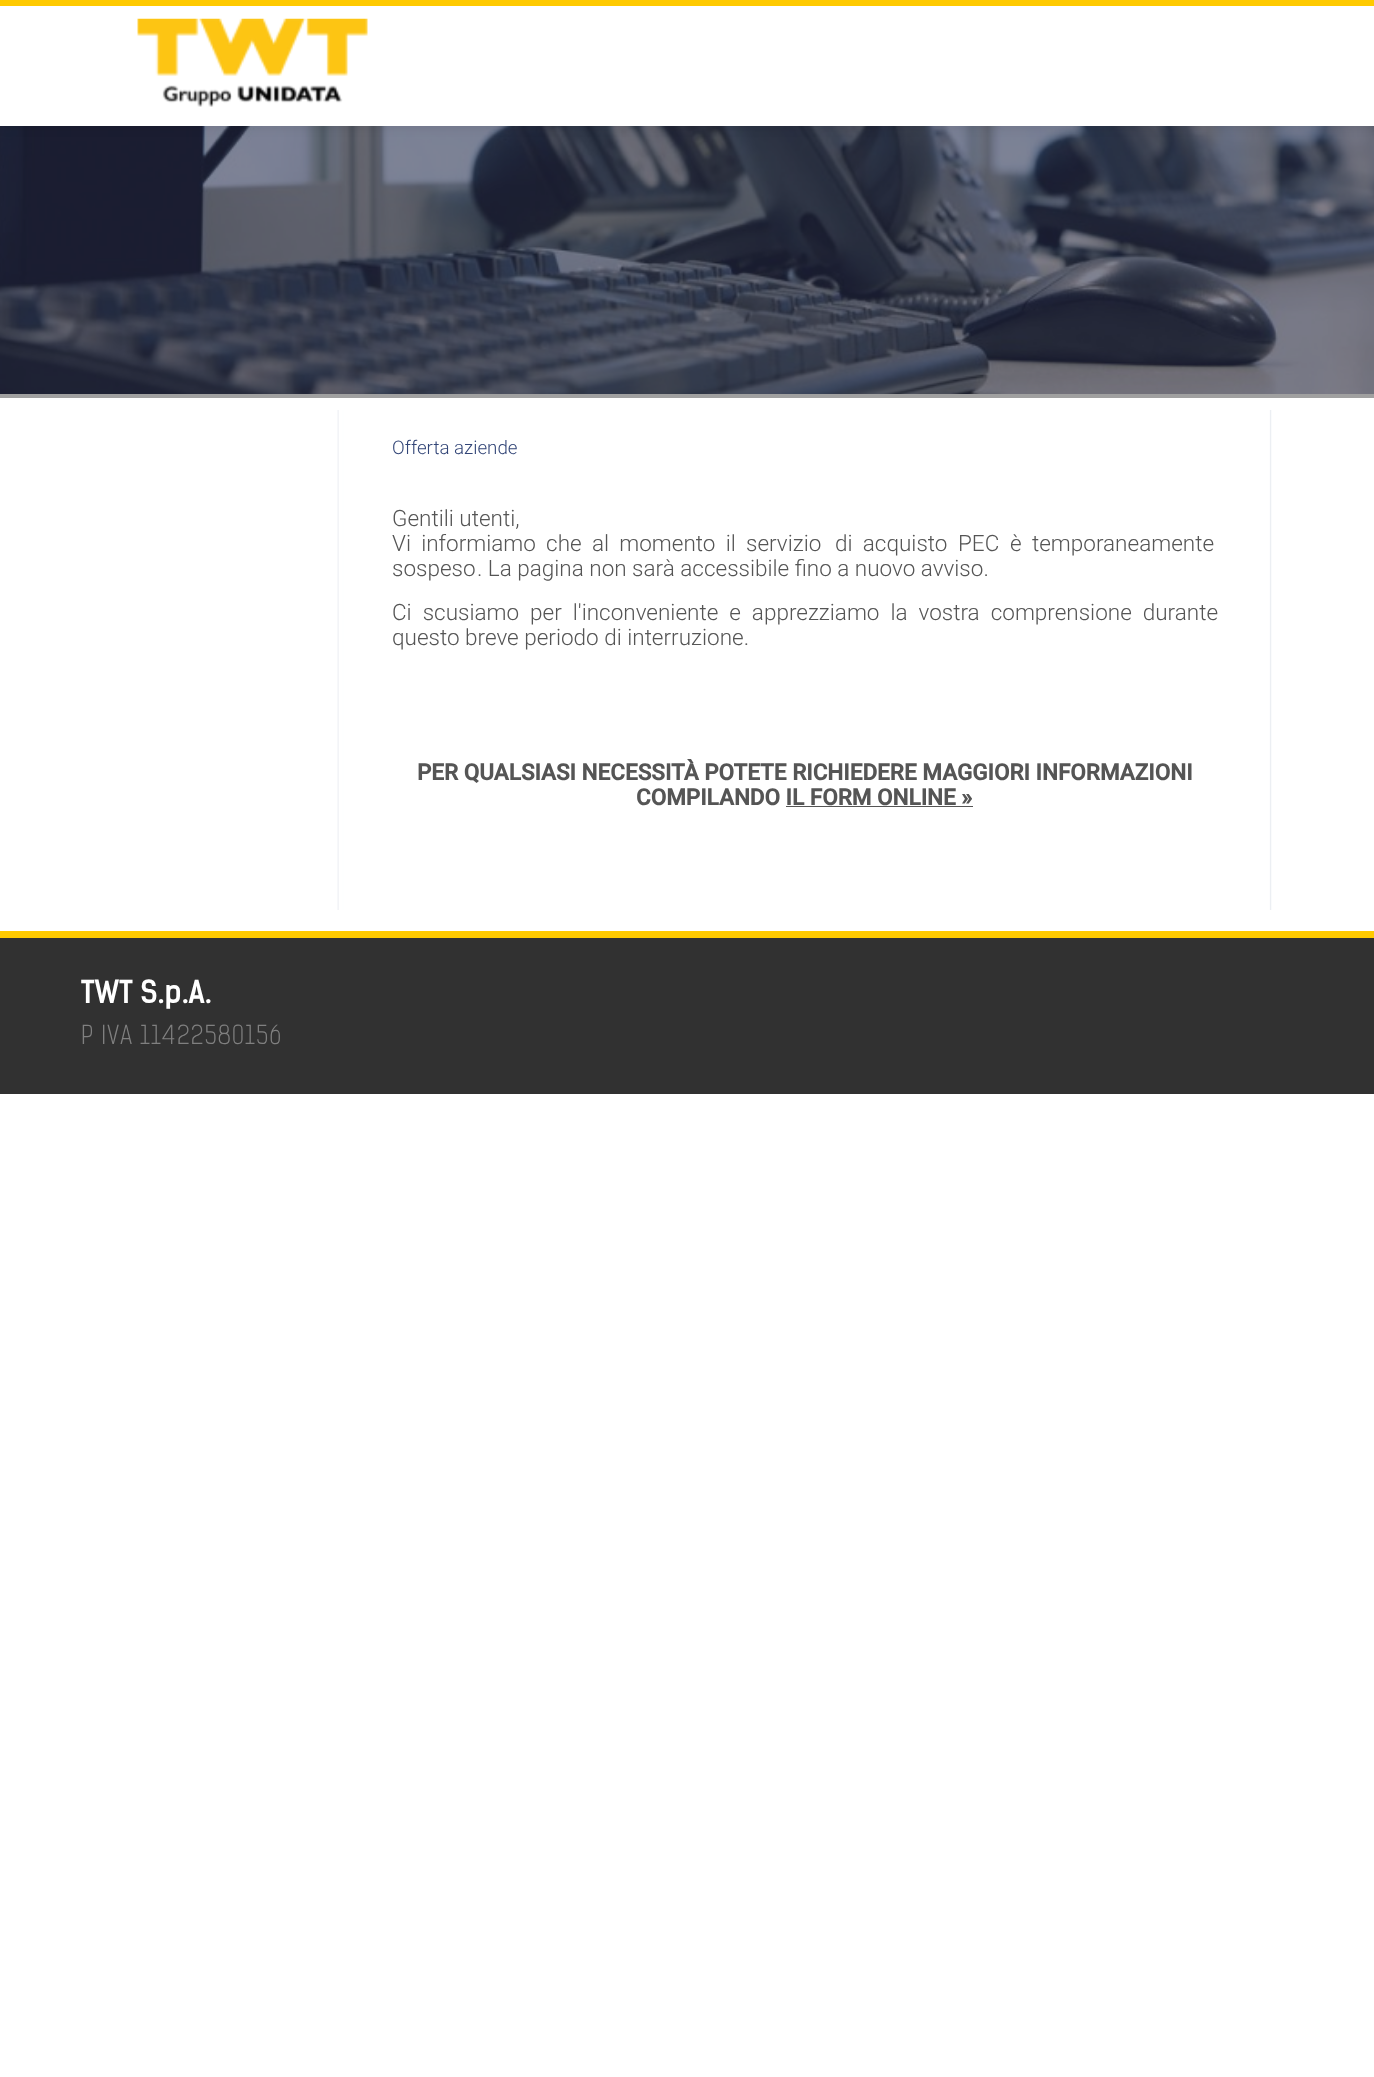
<svg xmlns="http://www.w3.org/2000/svg" width="1374" height="2077">
	<defs>
		<clipPath id="clip1"><rect x="81" y="975" width="1214" height="81" /></clipPath>
	</defs>
	<rect width="100%" height="100%" fill="#FFFFFF" />
	<image x="0" y="126" width="1374" height="268" href="assets/img2.png" />
	<rect x="0" y="0" width="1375" height="126" fill="#000000" fill-opacity="0.1" filter="blur(6px)" />
	<rect x="0" y="6" width="1374" height="120" fill="#FFFFFF" />
	<rect x="0" y="0" width="1374" height="6" fill="#FFCA00" />
	<image x="137" y="18" width="231" height="89" href="assets/img1.png" />
	<rect x="0" y="394" width="1374" height="4" fill="#A0A0A0" />
	<image x="337" y="410" width="935" height="500" href="assets/img3.png" />
	<text x="392" y="454" font-family="Roboto" font-size="18.75" font-weight="300" fill="#324577">Offerta aziende</text>
	<g font-family="Roboto" font-size="22.5" font-weight="300" fill="#555555">
		<text x="392" y="526">Gentili utenti,</text>
		<text x="392" y="551" word-spacing="4.75">Vi informiamo che al momento il</text>
		<text x="746" y="551">servizio</text>
		<text x="835" y="551" word-spacing="4.75">di acquisto</text>
		<text x="958" y="551">PEC</text>
		<text x="1010" y="551">è</text>
		<text x="1032" y="551">temporaneamente</text>
		<text x="392" y="576">sospeso</text>
		<text x="477" y="576">. La pagina non sarà accessibile fino a nuovo avviso.</text>
		<text x="392" y="620" word-spacing="5.5">Ci scusiamo per l'inconveniente e apprezziamo la vostra comprensione durante</text>
		<text x="392" y="645">questo breve periodo di interruzione.</text>
	</g>
	<g font-family="Roboto" font-size="22.5" font-weight="700" fill="#555555">
		<text x="417" y="780">PER QUALSIASI NECESSITÀ POTETE RICHIEDERE MAGGIORI INFORMAZIONI</text>
		<text x="636" y="805">COMPILANDO IL FORM ONLINE »</text>
	</g>
	<rect x="786" y="806" width="187" height="1" fill="#555555" />
	<rect x="0" y="931" width="1374" height="7" fill="#FFCA00" />
	<rect x="0" y="938" width="1374" height="156" fill="#313131" />
	<g clip-path="url(#clip1)">
		<text x="81" y="1003" font-family="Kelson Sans" font-size="29.25" font-weight="700" letter-spacing="0.9" fill="#FFFFFF">TWT S.p.A.</text>
	</g>
	<text x="81" y="1044" font-family="Kelson Sans" font-size="25" font-weight="300" letter-spacing="1.25" fill="#808080">P IVA 11422580156</text>
</svg>
